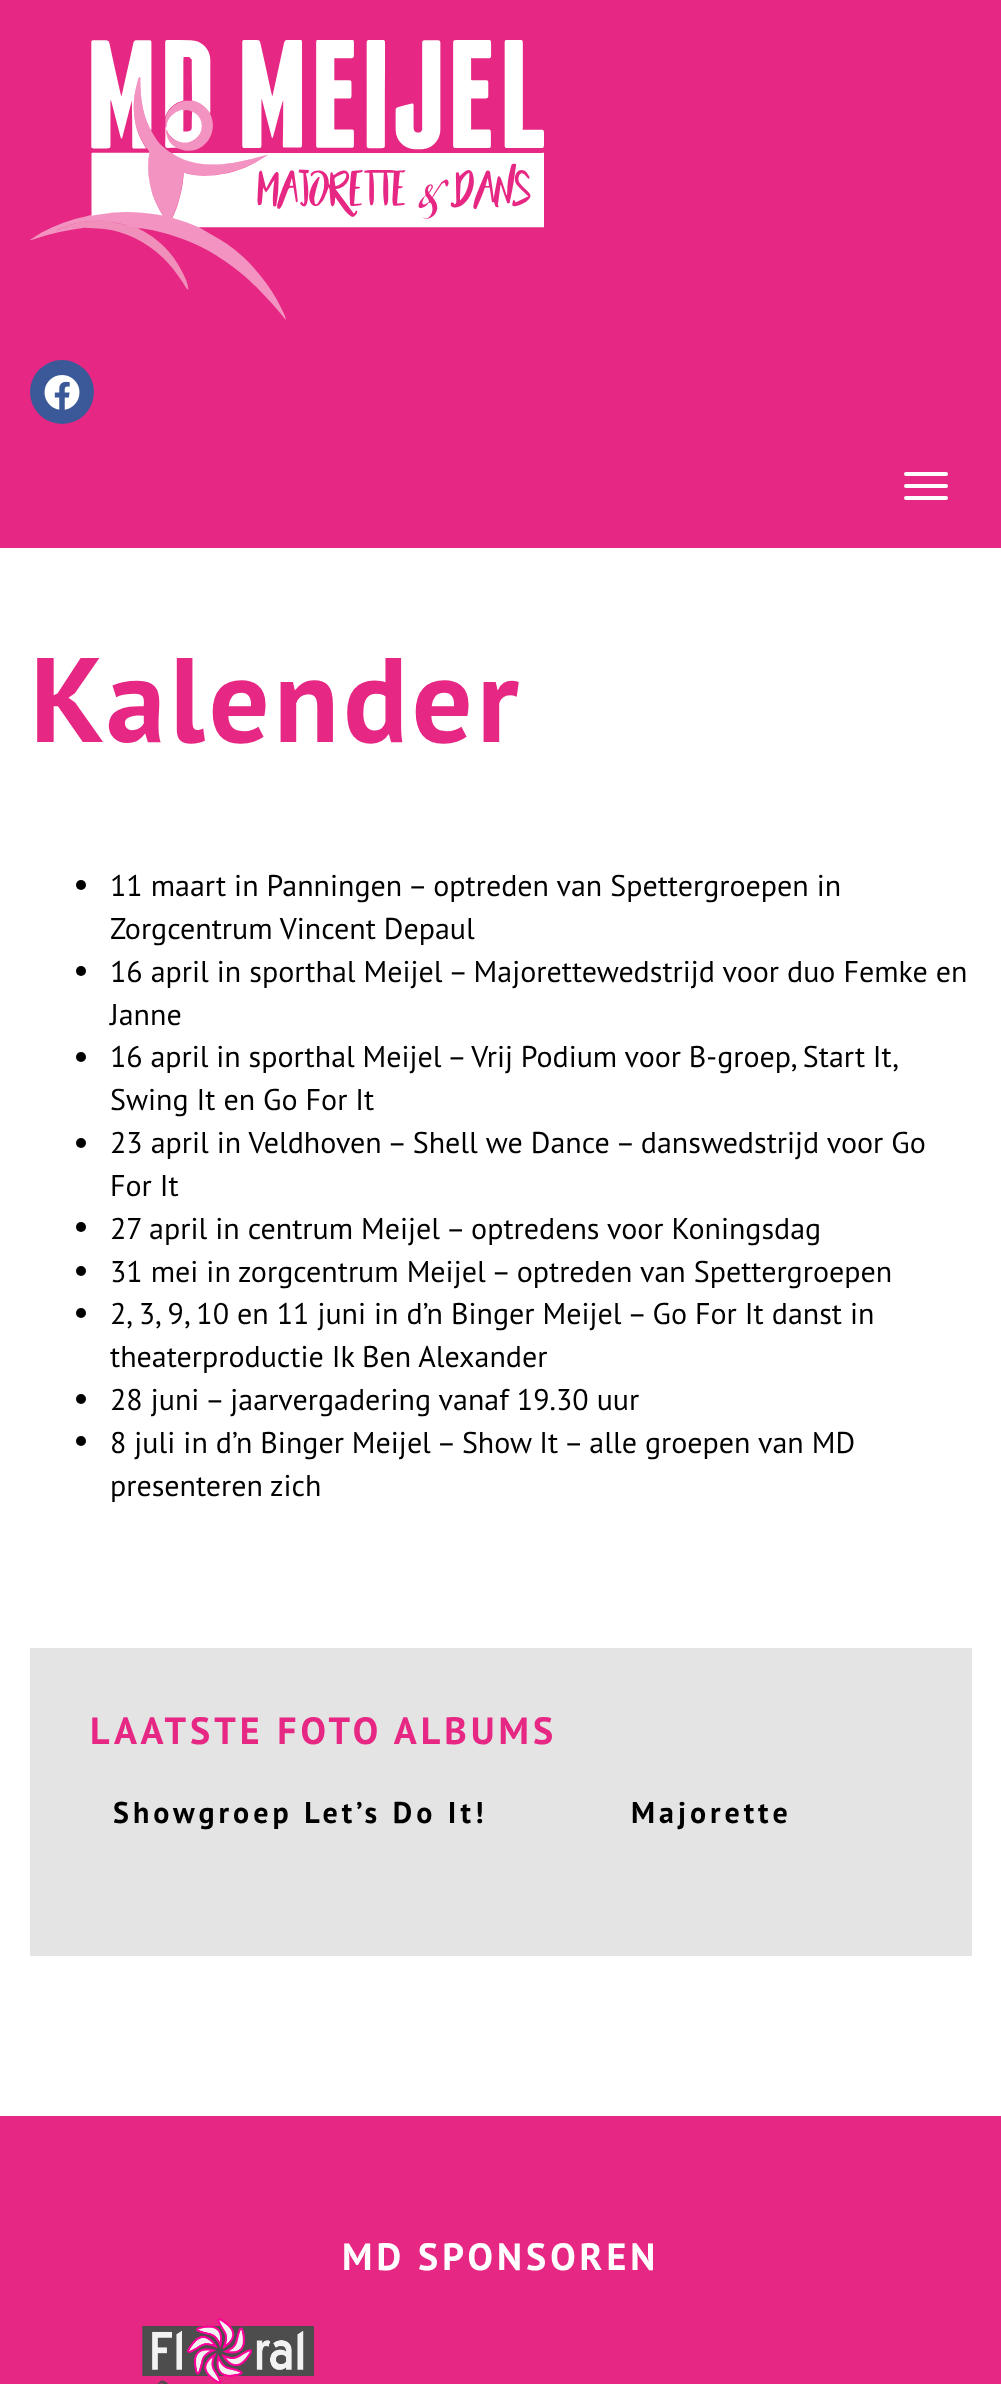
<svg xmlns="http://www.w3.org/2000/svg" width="1001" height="2384">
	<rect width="100%" height="100%" fill="#FFFFFF" />
	<rect x="0" y="0" width="1001" height="548" fill="#E62783" />
	<image x="30" y="40" width="514" height="280" href="assets/img1.png" />
	<circle cx="62" cy="392" r="32" fill="#3B5998" />
	<image x="44" y="375" width="36" height="35" href="assets/img2.png" />
	<rect x="904" y="472" width="44" height="4" rx="2" fill="#FFFFFF" />
	<rect x="904" y="484" width="44" height="4" rx="2" fill="#FFFFFF" />
	<rect x="904" y="496" width="44" height="4" rx="2" fill="#FFFFFF" />
	<text x="30" y="742" font-family="PT Sans" font-size="120" font-weight="700" letter-spacing="4" fill="#E62783">Kalender</text>
	<circle cx="81" cy="885" r="5" fill="#000000" />
	<g font-family="PT Sans" font-size="30" fill="#000000">
		<text x="110" y="896">11 maart in Panningen – optreden van Spettergroepen in</text>
		<text x="110" y="939">Zorgcentrum Vincent Depaul</text>
	</g>
	<circle cx="81" cy="971" r="5" fill="#000000" />
	<g font-family="PT Sans" font-size="30" fill="#000000">
		<text x="110" y="982">16 april in sporthal Meijel – Majorettewedstrijd voor duo Femke en</text>
		<text x="110" y="1025">Janne</text>
	</g>
	<circle cx="81" cy="1057" r="5" fill="#000000" />
	<g font-family="PT Sans" font-size="30" fill="#000000">
		<text x="110" y="1067" word-spacing="-0.25">16 april in sporthal Meijel – Vrij Podium voor B-groep, Start It,</text>
		<text x="110" y="1110">Swing It en Go For It</text>
	</g>
	<circle cx="81" cy="1143" r="5" fill="#000000" />
	<g font-family="PT Sans" font-size="30" fill="#000000">
		<text x="110" y="1153">23 april in Veldhoven – Shell we Dance – danswedstrijd voor Go</text>
		<text x="110" y="1196">For It</text>
	</g>
	<circle cx="81" cy="1227" r="5" fill="#000000" />
	<text x="110" y="1239" font-family="PT Sans" font-size="30" fill="#000000">27 april in centrum Meijel – optredens voor Koningsdag</text>
	<circle cx="81" cy="1271" r="5" fill="#000000" />
	<text x="110" y="1282" font-family="PT Sans" font-size="30" fill="#000000">31 mei in zorgcentrum Meijel – optreden van Spettergroepen</text>
	<circle cx="81" cy="1313" r="5" fill="#000000" />
	<g font-family="PT Sans" font-size="30" fill="#000000">
		<text x="110" y="1324">2, 3, 9, 10 en 11 juni in d’n Binger Meijel – Go For It danst in</text>
		<text x="110" y="1367">theaterproductie Ik Ben Alexander</text>
	</g>
	<circle cx="81" cy="1399" r="5" fill="#000000" />
	<text x="110" y="1410" font-family="PT Sans" font-size="30" fill="#000000">28 juni – jaarvergadering vanaf 19.30 uur</text>
	<circle cx="81" cy="1441" r="5" fill="#000000" />
	<g font-family="PT Sans" font-size="30" fill="#000000">
		<text x="110" y="1453">8 juli in d’n Binger Meijel – Show It – alle groepen van MD</text>
		<text x="110" y="1496">presenteren zich</text>
	</g>
	<rect x="30" y="1648" width="942" height="308" fill="#E4E4E4" />
	<text x="90" y="1744" font-family="PT Sans" font-size="38" font-weight="700" letter-spacing="4" fill="#E62783">LAATSTE FOTO ALBUMS</text>
	<g font-family="PT Sans" font-size="30" font-weight="700" letter-spacing="4" fill="#000000">
		<text x="113" y="1823">Showgroep Let’s Do It!</text>
		<text x="631" y="1823">Majorette</text>
	</g>
	<rect x="0" y="2116" width="1001" height="268" fill="#E62783" />
	<text x="342" y="2270" font-family="PT Sans" font-size="38" font-weight="700" letter-spacing="4" fill="#FFFFFF">MD SPONSOREN</text>
	<image x="142" y="2318" width="172" height="66" href="assets/img3.png" />
</svg>
